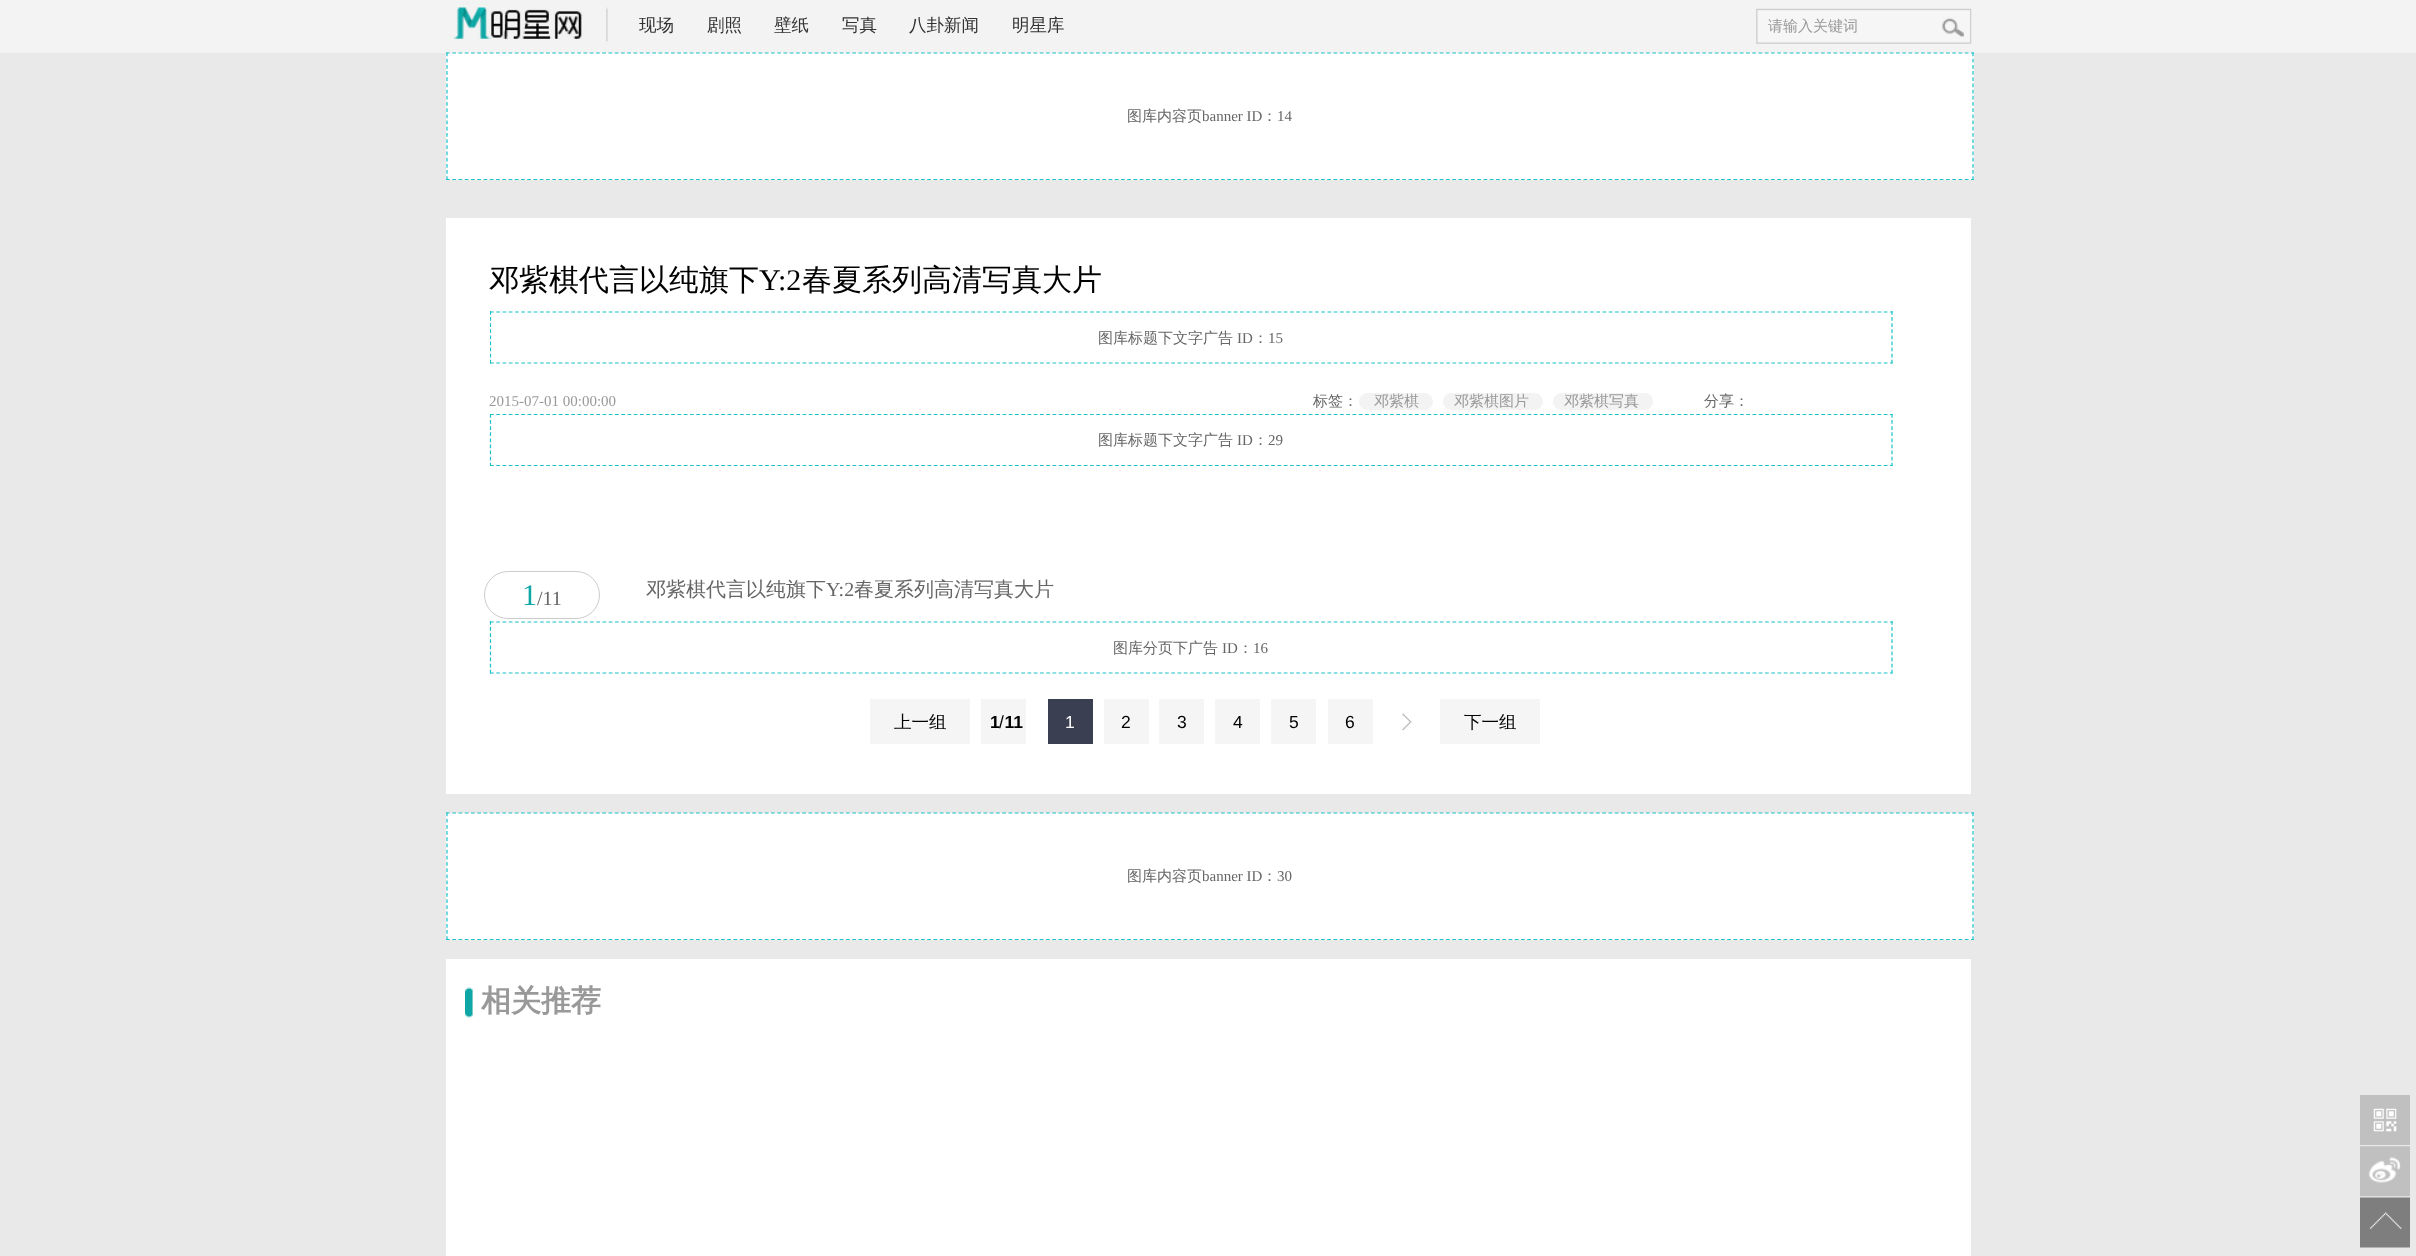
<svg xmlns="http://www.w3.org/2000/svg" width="2416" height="1256">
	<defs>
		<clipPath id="clip1"><rect x="490" y="311" width="1438" height="53" /></clipPath>
	</defs>
	<rect width="100%" height="100%" fill="#E9E9E9" />
	<rect x="0" y="0" width="2416" height="53" fill="#F3F3F3" />
	<image x="446" y="0" width="162" height="42" href="assets/img1.png" />
	<g font-family="WenQuanYi Zen Hei" font-size="17.5" font-weight="500" fill="#333333">
		<text x="639" y="31">现场</text>
		<text x="707" y="31">剧照</text>
		<text x="774" y="31">壁纸</text>
		<text x="842" y="31">写真</text>
		<text x="909" y="31">八卦新闻</text>
		<text x="1012" y="31">明星库</text>
	</g>
	<image x="1756" y="8" width="216" height="36" href="assets/img2.png" />
	<text x="1768" y="31" font-family="WenQuanYi Zen Hei" font-size="15" font-weight="500" fill="#999999">请输入关键词</text>
	<rect x="446" y="53" width="1528" height="127" fill="#FFFFFF" />
	<path d="M446 53H1974" fill="none" stroke="#18C2C8" stroke-width="1.2" stroke-dasharray="3.75 2.5" />
	<path d="M1973 52.5V180" fill="none" stroke="#18C2C8" stroke-width="1.2" stroke-dasharray="3.75 2.44" />
	<path d="M446 179.5H1974" fill="none" stroke="#18C2C8" stroke-width="1.2" stroke-dasharray="3.75 2.5" />
	<path d="M447 52.5V180" fill="none" stroke="#18C2C8" stroke-width="1.2" stroke-dasharray="3.75 2.44" />
	<text x="1127" y="121" font-family="WenQuanYi Zen Hei" font-size="15" font-weight="500" fill="#666666">图库内容页</text>
	<text x="1202" y="121" font-family="Liberation Serif" font-size="15" fill="#666666">banner ID</text>
	<text x="1262" y="121" font-family="WenQuanYi Zen Hei" font-size="15" font-weight="500" fill="#666666">：</text>
	<text x="1277" y="121" font-family="Liberation Serif" font-size="15" fill="#666666">14</text>
	<rect x="446" y="218" width="1525" height="576" fill="#FFFFFF" />
	<text x="489" y="290" font-family="WenQuanYi Zen Hei" font-size="30" font-weight="500" fill="#000000">邓紫棋代言以纯旗下</text>
	<text x="759" y="290" font-family="Liberation Serif" font-size="30" fill="#000000">Y:2</text>
	<text x="802" y="290" font-family="WenQuanYi Zen Hei" font-size="30" font-weight="500" fill="#000000">春夏系列高清写真大片</text>
	<path d="M490 312H1892.5" fill="none" stroke="#18C2C8" stroke-width="1.2" stroke-dasharray="3.75 2.5" />
	<path d="M1892 311V364" fill="none" stroke="#18C2C8" stroke-width="1.2" stroke-dasharray="3.75 2.35" />
	<path d="M490 363H1892.5" fill="none" stroke="#18C2C8" stroke-width="1.2" stroke-dasharray="3.75 2.5" />
	<g clip-path="url(#clip1)">
		<path d="M490.5 311V364" fill="none" stroke="#18C2C8" stroke-width="1.2" stroke-dasharray="3.75 2.35" />
	</g>
	<text x="1098" y="343" font-family="WenQuanYi Zen Hei" font-size="15" font-weight="500" fill="#666666">图库标题下文字广告</text>
	<text x="1237" y="343" font-family="Liberation Serif" font-size="15" fill="#666666">ID</text>
	<text x="1253" y="343" font-family="WenQuanYi Zen Hei" font-size="15" font-weight="500" fill="#666666">：</text>
	<text x="1268" y="343" font-family="Liberation Serif" font-size="15" fill="#666666">15</text>
	<text x="489" y="406" font-family="Liberation Serif" font-size="15" fill="#999999">2015-07-01 00:00:00</text>
	<text x="1313" y="406" font-family="WenQuanYi Zen Hei" font-size="15" font-weight="500" fill="#666666">标签：</text>
	<rect x="1359" y="393" width="74" height="17" rx="8.5" fill="#F3F3F3" />
	<text x="1374" y="406" font-family="WenQuanYi Zen Hei" font-size="15" font-weight="500" fill="#999999">邓紫棋</text>
	<rect x="1443" y="393" width="100" height="17" rx="8.5" fill="#F3F3F3" />
	<text x="1454" y="406" font-family="WenQuanYi Zen Hei" font-size="15" font-weight="500" fill="#999999">邓紫棋图片</text>
	<rect x="1553" y="393" width="100" height="17" rx="8.5" fill="#F3F3F3" />
	<text x="1564" y="406" font-family="WenQuanYi Zen Hei" font-size="15" font-weight="500" fill="#999999">邓紫棋写真</text>
	<text x="1704" y="406" font-family="WenQuanYi Zen Hei" font-size="15" font-weight="500" fill="#666666">分享：</text>
	<path d="M490 414.5H1892.5" fill="none" stroke="#18C2C8" stroke-width="1.2" stroke-dasharray="3.75 2.5" />
	<path d="M1892 414V466" fill="none" stroke="#18C2C8" stroke-width="1.2" stroke-dasharray="3.75 2.35" />
	<path d="M490 465.5H1892.5" fill="none" stroke="#18C2C8" stroke-width="1.2" stroke-dasharray="3.75 2.5" />
	<path d="M490.5 414V466" fill="none" stroke="#18C2C8" stroke-width="1.2" stroke-dasharray="3.75 2.35" />
	<text x="1098" y="445" font-family="WenQuanYi Zen Hei" font-size="15" font-weight="500" fill="#666666">图库标题下文字广告</text>
	<text x="1237" y="445" font-family="Liberation Serif" font-size="15" fill="#666666">ID</text>
	<text x="1253" y="445" font-family="WenQuanYi Zen Hei" font-size="15" font-weight="500" fill="#666666">：</text>
	<text x="1268" y="445" font-family="Liberation Serif" font-size="15" fill="#666666">29</text>
	<rect x="484.5" y="571.5" width="115" height="47" rx="23.5" fill="none" stroke="#CCCCCC" />
	<text x="522" y="605" font-family="Liberation Serif" font-size="30" fill="#0FA7A5">1</text>
	<text x="537" y="605" font-family="Liberation Serif" font-size="20" fill="#666666">/11</text>
	<text x="646" y="596" font-family="WenQuanYi Zen Hei" font-size="20" font-weight="500" fill="#666666">邓紫棋代言以纯旗下</text>
	<text x="826" y="596" font-family="Liberation Serif" font-size="20" fill="#666666">Y:2</text>
	<text x="854" y="596" font-family="WenQuanYi Zen Hei" font-size="20" font-weight="500" fill="#666666">春夏系列高清写真大片</text>
	<path d="M490 622H1892.5" fill="none" stroke="#18C2C8" stroke-width="1.2" stroke-dasharray="3.75 2.5" />
	<path d="M1892 621V674" fill="none" stroke="#18C2C8" stroke-width="1.2" stroke-dasharray="3.75 2.35" />
	<path d="M490 673H1892.5" fill="none" stroke="#18C2C8" stroke-width="1.2" stroke-dasharray="3.75 2.5" />
	<path d="M490.5 621V674" fill="none" stroke="#18C2C8" stroke-width="1.2" stroke-dasharray="3.75 2.35" />
	<text x="1113" y="653" font-family="WenQuanYi Zen Hei" font-size="15" font-weight="500" fill="#666666">图库分页下广告</text>
	<text x="1222" y="653" font-family="Liberation Serif" font-size="15" fill="#666666">ID</text>
	<text x="1238" y="653" font-family="WenQuanYi Zen Hei" font-size="15" font-weight="500" fill="#666666">：</text>
	<text x="1253" y="653" font-family="Liberation Serif" font-size="15" fill="#666666">16</text>
	<rect x="870" y="699" width="100" height="45" fill="#F5F5F5" />
	<text x="894" y="728" font-family="WenQuanYi Zen Hei" font-size="17.5" font-weight="500" fill="#000000">上一组</text>
	<rect x="981" y="699" width="45" height="45" fill="#F5F5F5" />
	<text x="990" y="728" font-family="Liberation Sans" font-size="17.5" font-weight="700" fill="#000000">1 11</text>
	<text x="999" y="728" font-family="Liberation Sans" font-size="17.5" fill="#000000">/</text>
	<rect x="1048" y="699" width="45" height="45" fill="#3A4052" />
	<text x="1065" y="728" font-family="Liberation Sans" font-size="17.5" fill="#FFFFFF">1</text>
	<rect x="1104" y="699" width="45" height="45" fill="#F5F5F5" />
	<text x="1121" y="728" font-family="Liberation Sans" font-size="17.5" fill="#000000">2</text>
	<rect x="1159" y="699" width="45" height="45" fill="#F5F5F5" />
	<text x="1177" y="728" font-family="Liberation Sans" font-size="17.5" fill="#000000">3</text>
	<rect x="1215" y="699" width="45" height="45" fill="#F5F5F5" />
	<text x="1233" y="728" font-family="Liberation Sans" font-size="17.5" fill="#000000">4</text>
	<rect x="1271" y="699" width="45" height="45" fill="#F5F5F5" />
	<text x="1289" y="728" font-family="Liberation Sans" font-size="17.5" fill="#000000">5</text>
	<rect x="1328" y="699" width="45" height="45" fill="#F5F5F5" />
	<text x="1345" y="728" font-family="Liberation Sans" font-size="17.5" fill="#000000">6</text>
	<image x="1402" y="713" width="10" height="18" href="assets/img3.png" />
	<rect x="1440" y="699" width="100" height="45" fill="#F5F5F5" />
	<text x="1464" y="728" font-family="WenQuanYi Zen Hei" font-size="17.5" font-weight="500" fill="#000000">下一组</text>
	<rect x="446" y="813" width="1528" height="127" fill="#FFFFFF" />
	<path d="M446 813H1974" fill="none" stroke="#18C2C8" stroke-width="1.2" stroke-dasharray="3.75 2.5" />
	<path d="M1973 812.5V940" fill="none" stroke="#18C2C8" stroke-width="1.2" stroke-dasharray="3.75 2.44" />
	<path d="M446 939.5H1974" fill="none" stroke="#18C2C8" stroke-width="1.2" stroke-dasharray="3.75 2.5" />
	<path d="M447 812.5V940" fill="none" stroke="#18C2C8" stroke-width="1.2" stroke-dasharray="3.75 2.44" />
	<text x="1127" y="881" font-family="WenQuanYi Zen Hei" font-size="15" font-weight="500" fill="#666666">图库内容页</text>
	<text x="1202" y="881" font-family="Liberation Serif" font-size="15" fill="#666666">banner ID</text>
	<text x="1262" y="881" font-family="WenQuanYi Zen Hei" font-size="15" font-weight="500" fill="#666666">：</text>
	<text x="1277" y="881" font-family="Liberation Serif" font-size="15" fill="#666666">30</text>
	<rect x="446" y="959" width="1525" height="297" fill="#FFFFFF" />
	<image x="465" y="987" width="8" height="31" href="assets/img4.png" />
	<text x="481" y="1011" font-family="WenQuanYi Zen Hei" font-size="30" font-weight="700" fill="#999999">相关推荐</text>
	<image x="2360" y="1095" width="50" height="50" href="assets/img5.png" />
	<image x="2360" y="1146" width="50" height="51" href="assets/img6.png" />
	<image x="2360" y="1197" width="50" height="51" href="assets/img7.png" />
</svg>
